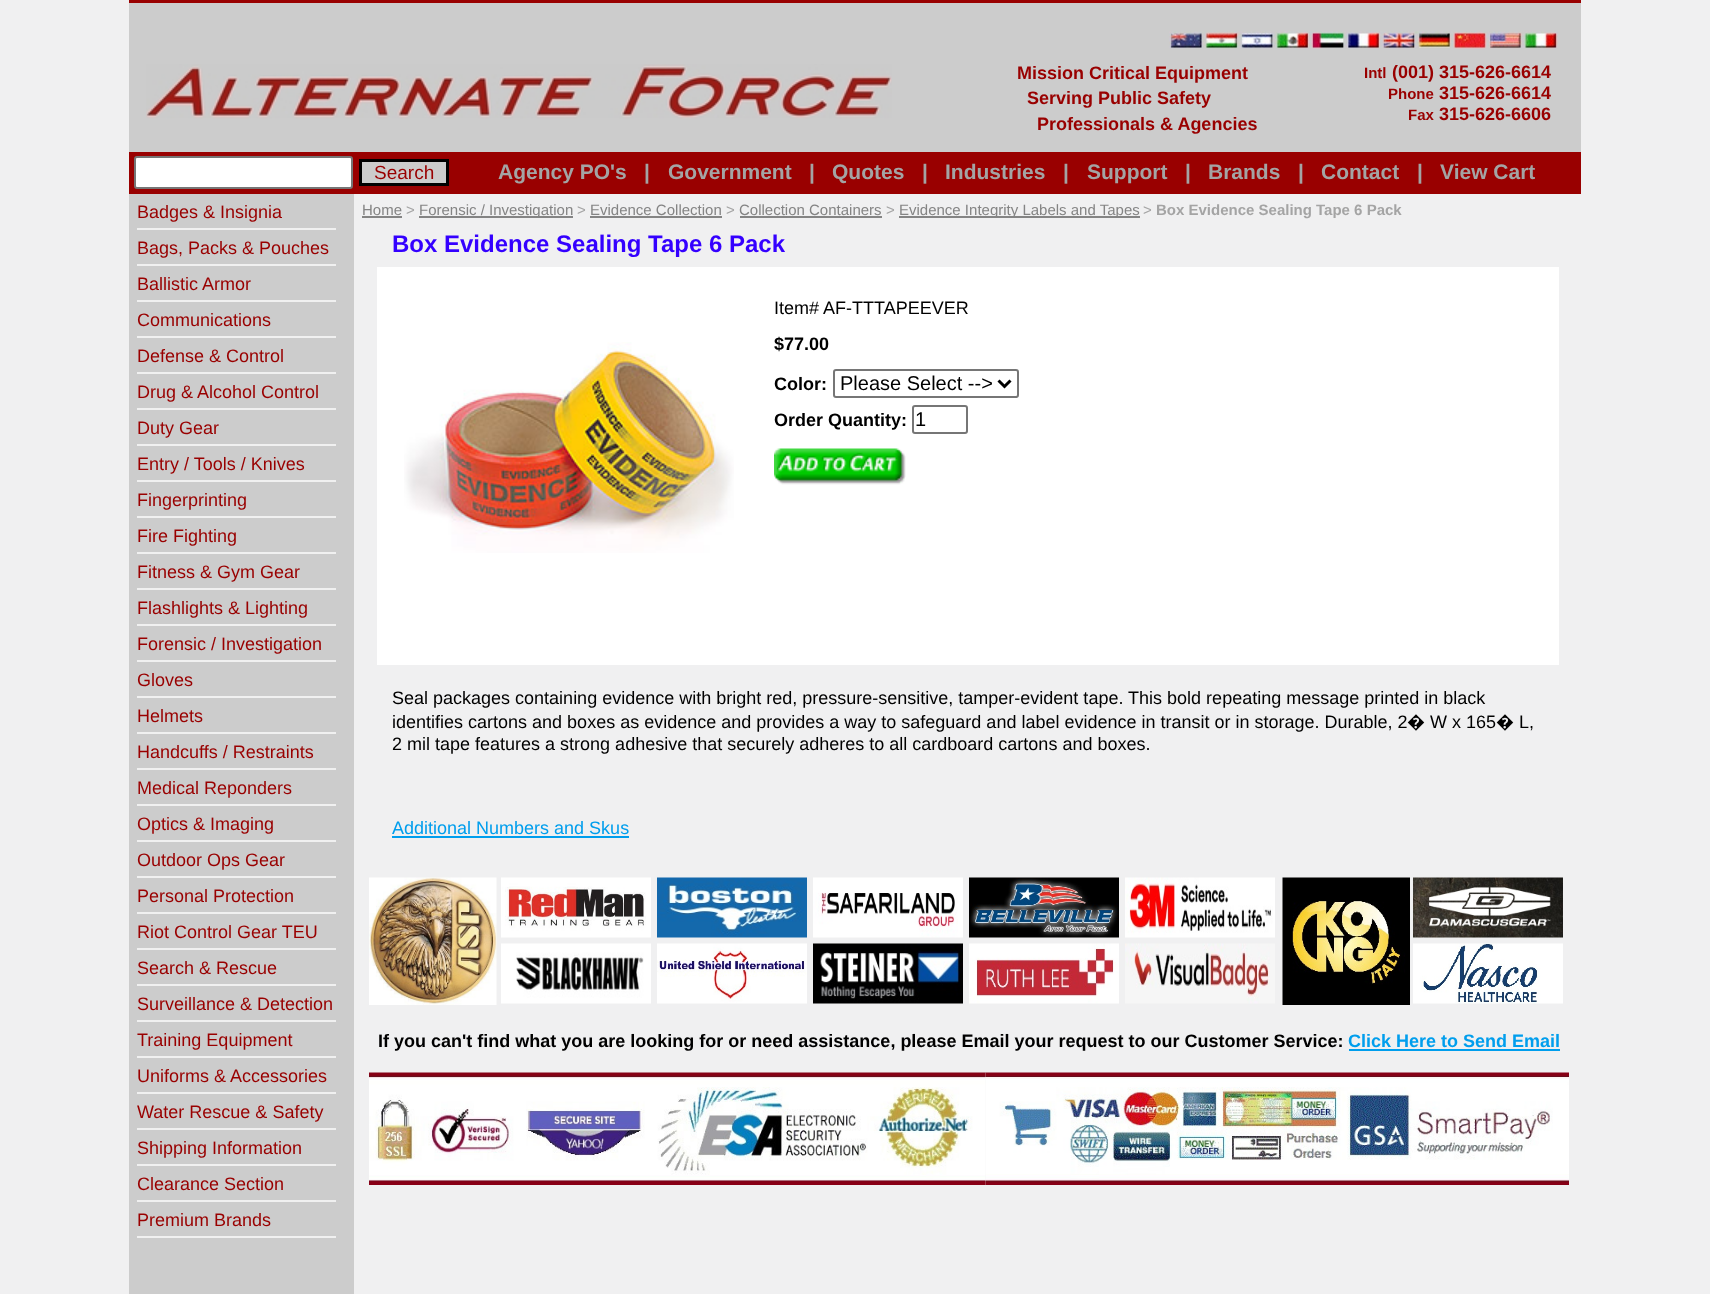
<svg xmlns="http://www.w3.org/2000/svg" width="1710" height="1294">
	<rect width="100%" height="100%" fill="#F0F0F1" />
	<rect x="129" y="0" width="1452" height="3" fill="#990000" />
	<rect x="129" y="3" width="1452" height="149" fill="#CCCCCC" />
	<image x="146" y="64" width="746" height="55" href="assets/img1.png" />
	<image x="1169" y="31" width="389" height="18" href="assets/img2.png" />
	<g font-family="Liberation Sans" font-size="18" font-weight="700" fill="#990000">
		<text x="1017" y="79">Mission Critical Equipment</text>
		<text x="1027" y="104">Serving Public Safety</text>
		<text x="1037" y="130">Professionals &amp; Agencies</text>
	</g>
	<text x="1364" y="78" font-family="Liberation Sans" font-size="15" font-weight="700" fill="#990000">Intl</text>
	<text x="1392" y="78" font-family="Liberation Sans" font-size="18" font-weight="700" fill="#990000">(001) 315-626-6614</text>
	<text x="1388" y="99" font-family="Liberation Sans" font-size="15" font-weight="700" fill="#990000">Phone</text>
	<text x="1439" y="99" font-family="Liberation Sans" font-size="18" font-weight="700" fill="#990000">315-626-6614</text>
	<text x="1408" y="120" font-family="Liberation Sans" font-size="15" font-weight="700" fill="#990000">Fax</text>
	<text x="1439" y="120" font-family="Liberation Sans" font-size="18" font-weight="700" fill="#990000">315-626-6606</text>
	<rect x="129" y="152" width="1452" height="42" fill="#990000" />
	<rect x="135" y="157" width="217" height="31" rx="2" fill="#FFFFFF" stroke="#767676" stroke-width="2" />
	<rect x="360.5" y="160.5" width="87" height="24" fill="#CCCCCC" stroke="#000000" stroke-width="3" />
	<text x="374" y="179" font-family="Liberation Sans" font-size="19" fill="#990000">Search</text>
	<g font-family="Liberation Sans" font-size="21" font-weight="700" fill="#A4A4A4">
		<text x="498" y="179">Agency PO's</text>
		<text x="644" y="179">|</text>
		<text x="668" y="179">Government</text>
		<text x="809" y="179">|</text>
		<text x="832" y="179">Quotes</text>
		<text x="922" y="179">|</text>
		<text x="945" y="179">Industries</text>
		<text x="1063" y="179">|</text>
		<text x="1087" y="179">Support</text>
		<text x="1185" y="179">|</text>
		<text x="1208" y="179">Brands</text>
		<text x="1298" y="179">|</text>
		<text x="1321" y="179">Contact</text>
		<text x="1417" y="179">|</text>
		<text x="1440" y="179">View Cart</text>
	</g>
	<rect x="129" y="194" width="225" height="1100" fill="#CCCCCC" />
	<rect x="137" y="228" width="199" height="2" fill="#F0F0F0" />
	<text x="137" y="218" font-family="Liberation Sans" font-size="18" fill="#990000">Badges &amp; Insignia</text>
	<rect x="137" y="264" width="199" height="2" fill="#F0F0F0" />
	<text x="137" y="254" font-family="Liberation Sans" font-size="18" fill="#990000">Bags, Packs &amp; Pouches</text>
	<rect x="137" y="300" width="199" height="2" fill="#F0F0F0" />
	<text x="137" y="290" font-family="Liberation Sans" font-size="18" fill="#990000">Ballistic Armor</text>
	<rect x="137" y="336" width="199" height="2" fill="#F0F0F0" />
	<text x="137" y="326" font-family="Liberation Sans" font-size="18" fill="#990000">Communications</text>
	<rect x="137" y="372" width="199" height="2" fill="#F0F0F0" />
	<text x="137" y="362" font-family="Liberation Sans" font-size="18" fill="#990000">Defense &amp; Control</text>
	<rect x="137" y="408" width="199" height="2" fill="#F0F0F0" />
	<text x="137" y="398" font-family="Liberation Sans" font-size="18" fill="#990000">Drug &amp; Alcohol Control</text>
	<rect x="137" y="444" width="199" height="2" fill="#F0F0F0" />
	<text x="137" y="434" font-family="Liberation Sans" font-size="18" fill="#990000">Duty Gear</text>
	<rect x="137" y="480" width="199" height="2" fill="#F0F0F0" />
	<text x="137" y="470" font-family="Liberation Sans" font-size="18" fill="#990000">Entry / Tools / Knives</text>
	<rect x="137" y="516" width="199" height="2" fill="#F0F0F0" />
	<text x="137" y="506" font-family="Liberation Sans" font-size="18" fill="#990000">Fingerprinting</text>
	<rect x="137" y="552" width="199" height="2" fill="#F0F0F0" />
	<text x="137" y="542" font-family="Liberation Sans" font-size="18" fill="#990000">Fire Fighting</text>
	<rect x="137" y="588" width="199" height="2" fill="#F0F0F0" />
	<text x="137" y="578" font-family="Liberation Sans" font-size="18" fill="#990000">Fitness &amp; Gym Gear</text>
	<rect x="137" y="624" width="199" height="2" fill="#F0F0F0" />
	<text x="137" y="614" font-family="Liberation Sans" font-size="18" fill="#990000">Flashlights &amp; Lighting</text>
	<rect x="137" y="660" width="199" height="2" fill="#F0F0F0" />
	<text x="137" y="650" font-family="Liberation Sans" font-size="18" fill="#990000">Forensic / Investigation</text>
	<rect x="137" y="696" width="199" height="2" fill="#F0F0F0" />
	<text x="137" y="686" font-family="Liberation Sans" font-size="18" fill="#990000">Gloves</text>
	<rect x="137" y="732" width="199" height="2" fill="#F0F0F0" />
	<text x="137" y="722" font-family="Liberation Sans" font-size="18" fill="#990000">Helmets</text>
	<rect x="137" y="768" width="199" height="2" fill="#F0F0F0" />
	<text x="137" y="758" font-family="Liberation Sans" font-size="18" fill="#990000">Handcuffs / Restraints</text>
	<rect x="137" y="804" width="199" height="2" fill="#F0F0F0" />
	<text x="137" y="794" font-family="Liberation Sans" font-size="18" fill="#990000">Medical Reponders</text>
	<rect x="137" y="840" width="199" height="2" fill="#F0F0F0" />
	<text x="137" y="830" font-family="Liberation Sans" font-size="18" fill="#990000">Optics &amp; Imaging</text>
	<rect x="137" y="876" width="199" height="2" fill="#F0F0F0" />
	<text x="137" y="866" font-family="Liberation Sans" font-size="18" fill="#990000">Outdoor Ops Gear</text>
	<rect x="137" y="912" width="199" height="2" fill="#F0F0F0" />
	<text x="137" y="902" font-family="Liberation Sans" font-size="18" fill="#990000">Personal Protection</text>
	<rect x="137" y="948" width="199" height="2" fill="#F0F0F0" />
	<text x="137" y="938" font-family="Liberation Sans" font-size="18" fill="#990000">Riot Control Gear TEU</text>
	<rect x="137" y="984" width="199" height="2" fill="#F0F0F0" />
	<text x="137" y="974" font-family="Liberation Sans" font-size="18" fill="#990000">Search &amp; Rescue</text>
	<rect x="137" y="1020" width="199" height="2" fill="#F0F0F0" />
	<text x="137" y="1010" font-family="Liberation Sans" font-size="18" fill="#990000">Surveillance &amp; Detection</text>
	<rect x="137" y="1056" width="199" height="2" fill="#F0F0F0" />
	<text x="137" y="1046" font-family="Liberation Sans" font-size="18" fill="#990000">Training Equipment</text>
	<rect x="137" y="1092" width="199" height="2" fill="#F0F0F0" />
	<text x="137" y="1082" font-family="Liberation Sans" font-size="18" fill="#990000">Uniforms &amp; Accessories</text>
	<rect x="137" y="1128" width="199" height="2" fill="#F0F0F0" />
	<text x="137" y="1118" font-family="Liberation Sans" font-size="18" fill="#990000">Water Rescue &amp; Safety</text>
	<rect x="137" y="1164" width="199" height="2" fill="#F0F0F0" />
	<text x="137" y="1154" font-family="Liberation Sans" font-size="18" fill="#990000">Shipping Information</text>
	<rect x="137" y="1200" width="199" height="2" fill="#F0F0F0" />
	<text x="137" y="1190" font-family="Liberation Sans" font-size="18" fill="#990000">Clearance Section</text>
	<rect x="137" y="1236" width="199" height="2" fill="#F0F0F0" />
	<text x="137" y="1226" font-family="Liberation Sans" font-size="18" fill="#990000">Premium Brands</text>
	<text x="362" y="215" font-family="Liberation Sans" font-size="15" fill="#848484">Home</text>
	<rect x="362" y="216" width="40" height="2" fill="#848484" />
	<text x="406" y="215" font-family="Liberation Sans" font-size="15" fill="#A4A4A4">&gt;</text>
	<rect x="419" y="216" width="154" height="2" fill="#848484" />
	<text x="419" y="215" font-family="Liberation Sans" font-size="15" fill="#848484">Forensic / Investigation</text>
	<text x="577" y="215" font-family="Liberation Sans" font-size="15" fill="#A4A4A4">&gt;</text>
	<text x="590" y="215" font-family="Liberation Sans" font-size="15" fill="#848484">Evidence Collection</text>
	<rect x="590" y="216" width="132" height="2" fill="#848484" />
	<text x="726" y="215" font-family="Liberation Sans" font-size="15" fill="#A4A4A4">&gt;</text>
	<text x="739" y="215" font-family="Liberation Sans" font-size="15" fill="#848484">Collection Containers</text>
	<rect x="740" y="216" width="142" height="2" fill="#848484" />
	<text x="886" y="215" font-family="Liberation Sans" font-size="15" fill="#A4A4A4">&gt;</text>
	<rect x="899" y="216" width="241" height="2" fill="#848484" />
	<text x="899" y="215" font-family="Liberation Sans" font-size="15" fill="#848484">Evidence Integrity Labels and Tapes</text>
	<text x="1143" y="215" font-family="Liberation Sans" font-size="15" fill="#A4A4A4">&gt;</text>
	<text x="1156" y="215" font-family="Liberation Sans" font-size="15" font-weight="700" fill="#A4A4A4">Box Evidence Sealing Tape 6 Pack</text>
	<text x="392" y="252" font-family="Liberation Sans" font-size="24" font-weight="700" fill="#3400FF">Box Evidence Sealing Tape 6 Pack</text>
	<rect x="377" y="267" width="1182" height="398" fill="#FFFFFF" />
	<image x="404" y="342" width="330" height="211" href="assets/img3.png" />
	<g font-family="Liberation Sans" font-size="18" fill="#000000">
		<text x="774" y="314">Item#</text>
		<text x="823" y="314">AF-TTTAPEEVER</text>
	</g>
	<g font-family="Liberation Sans" font-size="18" font-weight="700" fill="#000000">
		<text x="774" y="350">$77.00</text>
		<text x="774" y="390">Color:</text>
	</g>
	<rect x="834" y="370" width="184" height="27" rx="2" fill="none" stroke="#767676" stroke-width="2" />
	<path d="M998.5 380.5L1004.5 386.5L1010.5 380.5" fill="none" stroke="#000000" stroke-width="3" />
	<text x="840" y="390" font-family="Liberation Sans" font-size="20" fill="#000000">Please Select --&gt;</text>
	<text x="774" y="426" font-family="Liberation Sans" font-size="18" font-weight="700" fill="#000000">Order Quantity:</text>
	<rect x="913" y="406" width="54" height="27" rx="2" fill="none" stroke="#767676" stroke-width="2" />
	<text x="915" y="426" font-family="Liberation Sans" font-size="20" fill="#000000">1</text>
	<image x="774" y="448" width="132" height="37" href="assets/img4.png" />
	<g font-family="Liberation Sans" font-size="18" fill="#000000">
		<text x="392" y="704">Seal packages containing evidence with bright red, pressure-sensitive, tamper-evident tape. This bold repeating message printed in black</text>
		<text x="392" y="728">identifies cartons and boxes as evidence and provides a way to safeguard and label evidence in transit or in storage. Durable, 2</text>
	</g>
	<text x="1407" y="728" font-family="Noto Sans" font-size="18" fill="#000000">�</text>
	<text x="1430" y="728" font-family="Liberation Sans" font-size="18" fill="#000000">W x 165</text>
	<text x="1496" y="728" font-family="Noto Sans" font-size="18" fill="#000000">�</text>
	<g font-family="Liberation Sans" font-size="18" fill="#000000">
		<text x="1519" y="728">L,</text>
		<text x="392" y="750">2 mil tape features a strong adhesive that securely adheres to all cardboard cartons and boxes.</text>
	</g>
	<text x="392" y="834" font-family="Liberation Sans" font-size="18" fill="#009EED">Additional Numbers and Skus</text>
	<rect x="392" y="836" width="237" height="2" fill="#009EED" />
	<image x="369" y="877" width="128" height="128" href="assets/img5.png" />
	<image x="501" y="877" width="150" height="61" href="assets/img6.png" />
	<image x="657" y="877" width="150" height="61" href="assets/img7.png" />
	<image x="813" y="877" width="150" height="61" href="assets/img8.png" />
	<image x="969" y="877" width="150" height="61" href="assets/img9.png" />
	<image x="1125" y="877" width="150" height="61" href="assets/img10.png" />
	<image x="1282" y="877" width="128" height="128" href="assets/img11.png" />
	<image x="1413" y="877" width="150" height="61" href="assets/img12.png" />
	<image x="501" y="943" width="150" height="61" href="assets/img13.png" />
	<image x="657" y="943" width="150" height="61" href="assets/img14.png" />
	<image x="813" y="943" width="150" height="61" href="assets/img15.png" />
	<image x="969" y="943" width="150" height="61" href="assets/img16.png" />
	<image x="1125" y="943" width="150" height="61" href="assets/img17.png" />
	<image x="1413" y="943" width="150" height="61" href="assets/img18.png" />
	<text x="378" y="1047" font-family="Liberation Sans" font-size="18" font-weight="700" fill="#000000">If you can't find what you are looking for or need assistance, please Email your request to our Customer Service:</text>
	<text x="1348" y="1047" font-family="Liberation Sans" font-size="18" font-weight="700" fill="#009EED">Click Here to Send Email</text>
	<rect x="1349" y="1049" width="211" height="2" fill="#009EED" />
	<image x="369" y="1072" width="617" height="113" href="assets/img19.png" />
	<image x="985" y="1072" width="584" height="113" href="assets/img20.png" />
</svg>
